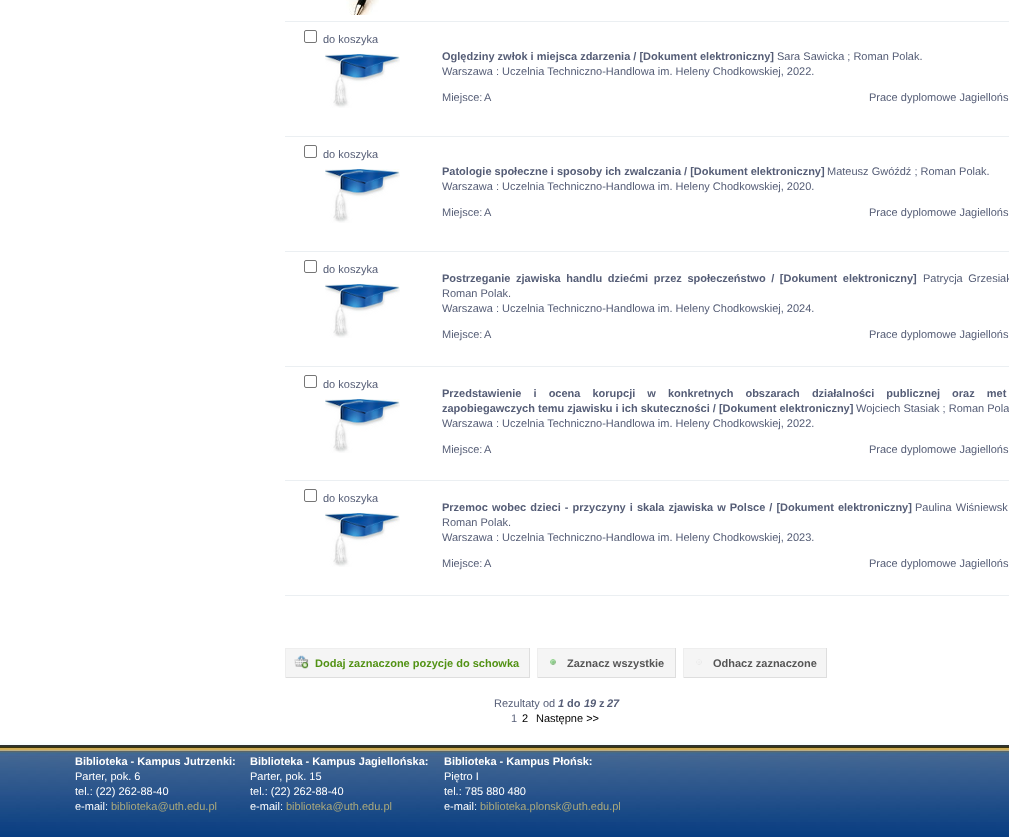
<svg xmlns="http://www.w3.org/2000/svg" width="1009" height="837">
	<rect width="100%" height="100%" fill="#FFFFFF" />
	<image x="346" y="0" width="33" height="15" href="assets/img1.png" />
	<rect x="285" y="21" width="724" height="1" fill="#EBEFF2" />
	<rect x="304.5" y="30.5" width="12" height="12" rx="1.5" fill="none" stroke="#767676" />
	<text x="323" y="43" font-family="Liberation Sans" font-size="11" fill="#555D76">do koszyka</text>
	<image x="325" y="54" width="75" height="54" href="assets/img2.png" />
	<text x="442" y="60" font-family="Liberation Sans" font-size="11" font-weight="700" fill="#555D76">Oględziny zwłok i miejsca zdarzenia / [Dokument elektroniczny]</text>
	<g font-family="Liberation Sans" font-size="11" fill="#555D76">
		<text x="777" y="60">Sara Sawicka ; Roman Polak.</text>
		<text x="442" y="75">Warszawa : Uczelnia Techniczno-Handlowa im. Heleny Chodkowskiej, 2022.</text>
		<text x="442" y="101">Miejsce:</text>
		<text x="484" y="101">A</text>
		<text x="869" y="101">Prace dyplomowe Jagiellońs</text>
	</g>
	<rect x="285" y="136" width="724" height="1" fill="#EBEFF2" />
	<rect x="304.5" y="145.5" width="12" height="12" rx="1.5" fill="none" stroke="#767676" />
	<text x="323" y="158" font-family="Liberation Sans" font-size="11" fill="#555D76">do koszyka</text>
	<image x="325" y="169" width="75" height="54" href="assets/img2.png" />
	<text x="442" y="175" font-family="Liberation Sans" font-size="11" font-weight="700" fill="#555D76">Patologie społeczne i sposoby ich zwalczania / [Dokument elektroniczny]</text>
	<g font-family="Liberation Sans" font-size="11" fill="#555D76">
		<text x="827" y="175">Mateusz Gwóźdź ; Roman Polak.</text>
		<text x="442" y="190">Warszawa : Uczelnia Techniczno-Handlowa im. Heleny Chodkowskiej, 2020.</text>
		<text x="442" y="216">Miejsce:</text>
		<text x="484" y="216">A</text>
		<text x="869" y="216">Prace dyplomowe Jagiellońs</text>
	</g>
	<rect x="285" y="251" width="724" height="1" fill="#EBEFF2" />
	<rect x="304.5" y="260.5" width="12" height="12" rx="1.5" fill="none" stroke="#767676" />
	<text x="323" y="273" font-family="Liberation Sans" font-size="11" fill="#555D76">do koszyka</text>
	<image x="325" y="284" width="75" height="54" href="assets/img2.png" />
	<text x="442" y="282" word-spacing="2.5" font-family="Liberation Sans" font-size="11" font-weight="700" fill="#555D76">Postrzeganie zjawiska handlu dziećmi przez społeczeństwo / [Dokument elektroniczny]</text>
	<g font-family="Liberation Sans" font-size="11" fill="#555D76">
		<text x="923" y="282" word-spacing="2.5">Patrycja Grzesiak</text>
		<text x="442" y="297">Roman Polak.</text>
		<text x="442" y="312">Warszawa : Uczelnia Techniczno-Handlowa im. Heleny Chodkowskiej, 2024.</text>
		<text x="442" y="338">Miejsce:</text>
		<text x="484" y="338">A</text>
		<text x="869" y="338">Prace dyplomowe Jagiellońs</text>
	</g>
	<rect x="285" y="366" width="724" height="1" fill="#EBEFF2" />
	<rect x="304.5" y="375.5" width="12" height="12" rx="1.5" fill="none" stroke="#767676" />
	<text x="323" y="388" font-family="Liberation Sans" font-size="11" fill="#555D76">do koszyka</text>
	<image x="325" y="399" width="75" height="54" href="assets/img2.png" />
	<g font-family="Liberation Sans" font-size="11" font-weight="700" fill="#555D76">
		<text x="442" y="397" word-spacing="9">Przedstawienie i ocena korupcji w konkretnych obszarach działalności publicznej oraz met</text>
		<text x="442" y="412">zapobiegawczych temu zjawisku i ich skuteczności / [Dokument elektroniczny]</text>
	</g>
	<g font-family="Liberation Sans" font-size="11" fill="#555D76">
		<text x="856" y="412">Wojciech Stasiak ; Roman Pola</text>
		<text x="442" y="427">Warszawa : Uczelnia Techniczno-Handlowa im. Heleny Chodkowskiej, 2022.</text>
		<text x="442" y="453">Miejsce:</text>
		<text x="484" y="453">A</text>
		<text x="869" y="453">Prace dyplomowe Jagiellońs</text>
	</g>
	<rect x="285" y="480" width="724" height="1" fill="#EBEFF2" />
	<rect x="304.5" y="489.5" width="12" height="12" rx="1.5" fill="none" stroke="#767676" />
	<text x="323" y="502" font-family="Liberation Sans" font-size="11" fill="#555D76">do koszyka</text>
	<image x="325" y="513" width="75" height="54" href="assets/img2.png" />
	<text x="442" y="511" word-spacing="1" font-family="Liberation Sans" font-size="11" font-weight="700" fill="#555D76">Przemoc wobec dzieci - przyczyny i skala zjawiska w Polsce / [Dokument elektroniczny]</text>
	<g font-family="Liberation Sans" font-size="11" fill="#555D76">
		<text x="915" y="511" word-spacing="1">Paulina Wiśniewsk</text>
		<text x="442" y="526">Roman Polak.</text>
		<text x="442" y="541">Warszawa : Uczelnia Techniczno-Handlowa im. Heleny Chodkowskiej, 2023.</text>
		<text x="442" y="567">Miejsce:</text>
		<text x="484" y="567">A</text>
		<text x="869" y="567">Prace dyplomowe Jagiellońs</text>
	</g>
	<rect x="285" y="595" width="724" height="1" fill="#EBEFF2" />
	<rect x="286" y="649" width="243" height="28" fill="#F5F5F5" />
	<rect x="285" y="648" width="245" height="1" fill="#EEEEEE" />
	<rect x="529" y="648" width="1" height="30" fill="#DEDEDE" />
	<rect x="285" y="677" width="245" height="1" fill="#DEDEDE" />
	<rect x="285" y="648" width="1" height="30" fill="#EEEEEE" />
	<image x="294" y="655" width="15" height="14" href="assets/img3.png" />
	<text x="315" y="667" font-family="Liberation Sans" font-size="11" font-weight="700" fill="#529214">Dodaj zaznaczone pozycje do schowka</text>
	<rect x="538" y="649" width="137" height="28" fill="#F5F5F5" />
	<rect x="537" y="648" width="139" height="1" fill="#EEEEEE" />
	<rect x="675" y="648" width="1" height="30" fill="#DEDEDE" />
	<rect x="537" y="677" width="139" height="1" fill="#DEDEDE" />
	<rect x="537" y="648" width="1" height="30" fill="#EEEEEE" />
	<image x="550" y="659" width="6" height="6" href="assets/img4.png" />
	<text x="567" y="667" font-family="Liberation Sans" font-size="11" font-weight="700" fill="#565656">Zaznacz wszystkie</text>
	<rect x="684" y="649" width="142" height="28" fill="#F5F5F5" />
	<rect x="683" y="648" width="144" height="1" fill="#EEEEEE" />
	<rect x="826" y="648" width="1" height="30" fill="#DEDEDE" />
	<rect x="683" y="677" width="144" height="1" fill="#DEDEDE" />
	<rect x="683" y="648" width="1" height="30" fill="#EEEEEE" />
	<image x="696" y="659" width="6" height="6" href="assets/img5.png" />
	<text x="713" y="667" font-family="Liberation Sans" font-size="11" font-weight="700" fill="#565656">Odhacz zaznaczone</text>
	<text x="494" y="707" font-family="Liberation Sans" font-size="11" fill="#555D76">Rezultaty od</text>
	<text x="558" y="707" font-family="Liberation Sans" font-size="11" font-weight="700" font-style="italic" fill="#555D76">1</text>
	<text x="567" y="707" font-family="Liberation Sans" font-size="11" font-weight="700" fill="#555D76">do</text>
	<text x="584" y="707" font-family="Liberation Sans" font-size="11" font-weight="700" font-style="italic" fill="#555D76">19</text>
	<text x="599" y="707" font-family="Liberation Sans" font-size="11" font-weight="700" fill="#555D76">z</text>
	<text x="607" y="707" font-family="Liberation Sans" font-size="11" font-weight="700" font-style="italic" fill="#555D76">27</text>
	<text x="511" y="722" font-family="Liberation Sans" font-size="11" fill="#555D76">1</text>
	<g font-family="Liberation Sans" font-size="11" fill="#000000">
		<text x="522" y="722">2</text>
		<text x="536" y="722">Następne &gt;&gt;</text>
	</g>
	<image x="0" y="726" width="1009" height="111" href="assets/img6.png" />
	<text x="75" y="765" font-family="Liberation Sans" font-size="11" font-weight="700" fill="#FFFFFF">Biblioteka - Kampus Jutrzenki:</text>
	<g font-family="Liberation Sans" font-size="11" fill="#FFFFFF">
		<text x="75" y="780">Parter, pok. 6</text>
		<text x="75" y="795">tel.: (22) 262-88-40</text>
		<text x="75" y="810">e-mail:</text>
	</g>
	<text x="111" y="810" font-family="Liberation Sans" font-size="11" fill="#AAA87C">biblioteka@uth.edu.pl</text>
	<text x="250" y="765" font-family="Liberation Sans" font-size="11" font-weight="700" fill="#FFFFFF">Biblioteka - Kampus Jagiellońska:</text>
	<g font-family="Liberation Sans" font-size="11" fill="#FFFFFF">
		<text x="250" y="780">Parter, pok. 15</text>
		<text x="250" y="795">tel.: (22) 262-88-40</text>
		<text x="250" y="810">e-mail:</text>
	</g>
	<text x="286" y="810" font-family="Liberation Sans" font-size="11" fill="#AAA87C">biblioteka@uth.edu.pl</text>
	<text x="444" y="765" font-family="Liberation Sans" font-size="11" font-weight="700" fill="#FFFFFF">Biblioteka - Kampus Płońsk:</text>
	<g font-family="Liberation Sans" font-size="11" fill="#FFFFFF">
		<text x="444" y="780">Piętro I</text>
		<text x="444" y="795">tel.: 785 880 480</text>
		<text x="444" y="810">e-mail:</text>
	</g>
	<text x="480" y="810" font-family="Liberation Sans" font-size="11" fill="#AAA87C">biblioteka.plonsk@uth.edu.pl</text>
</svg>
